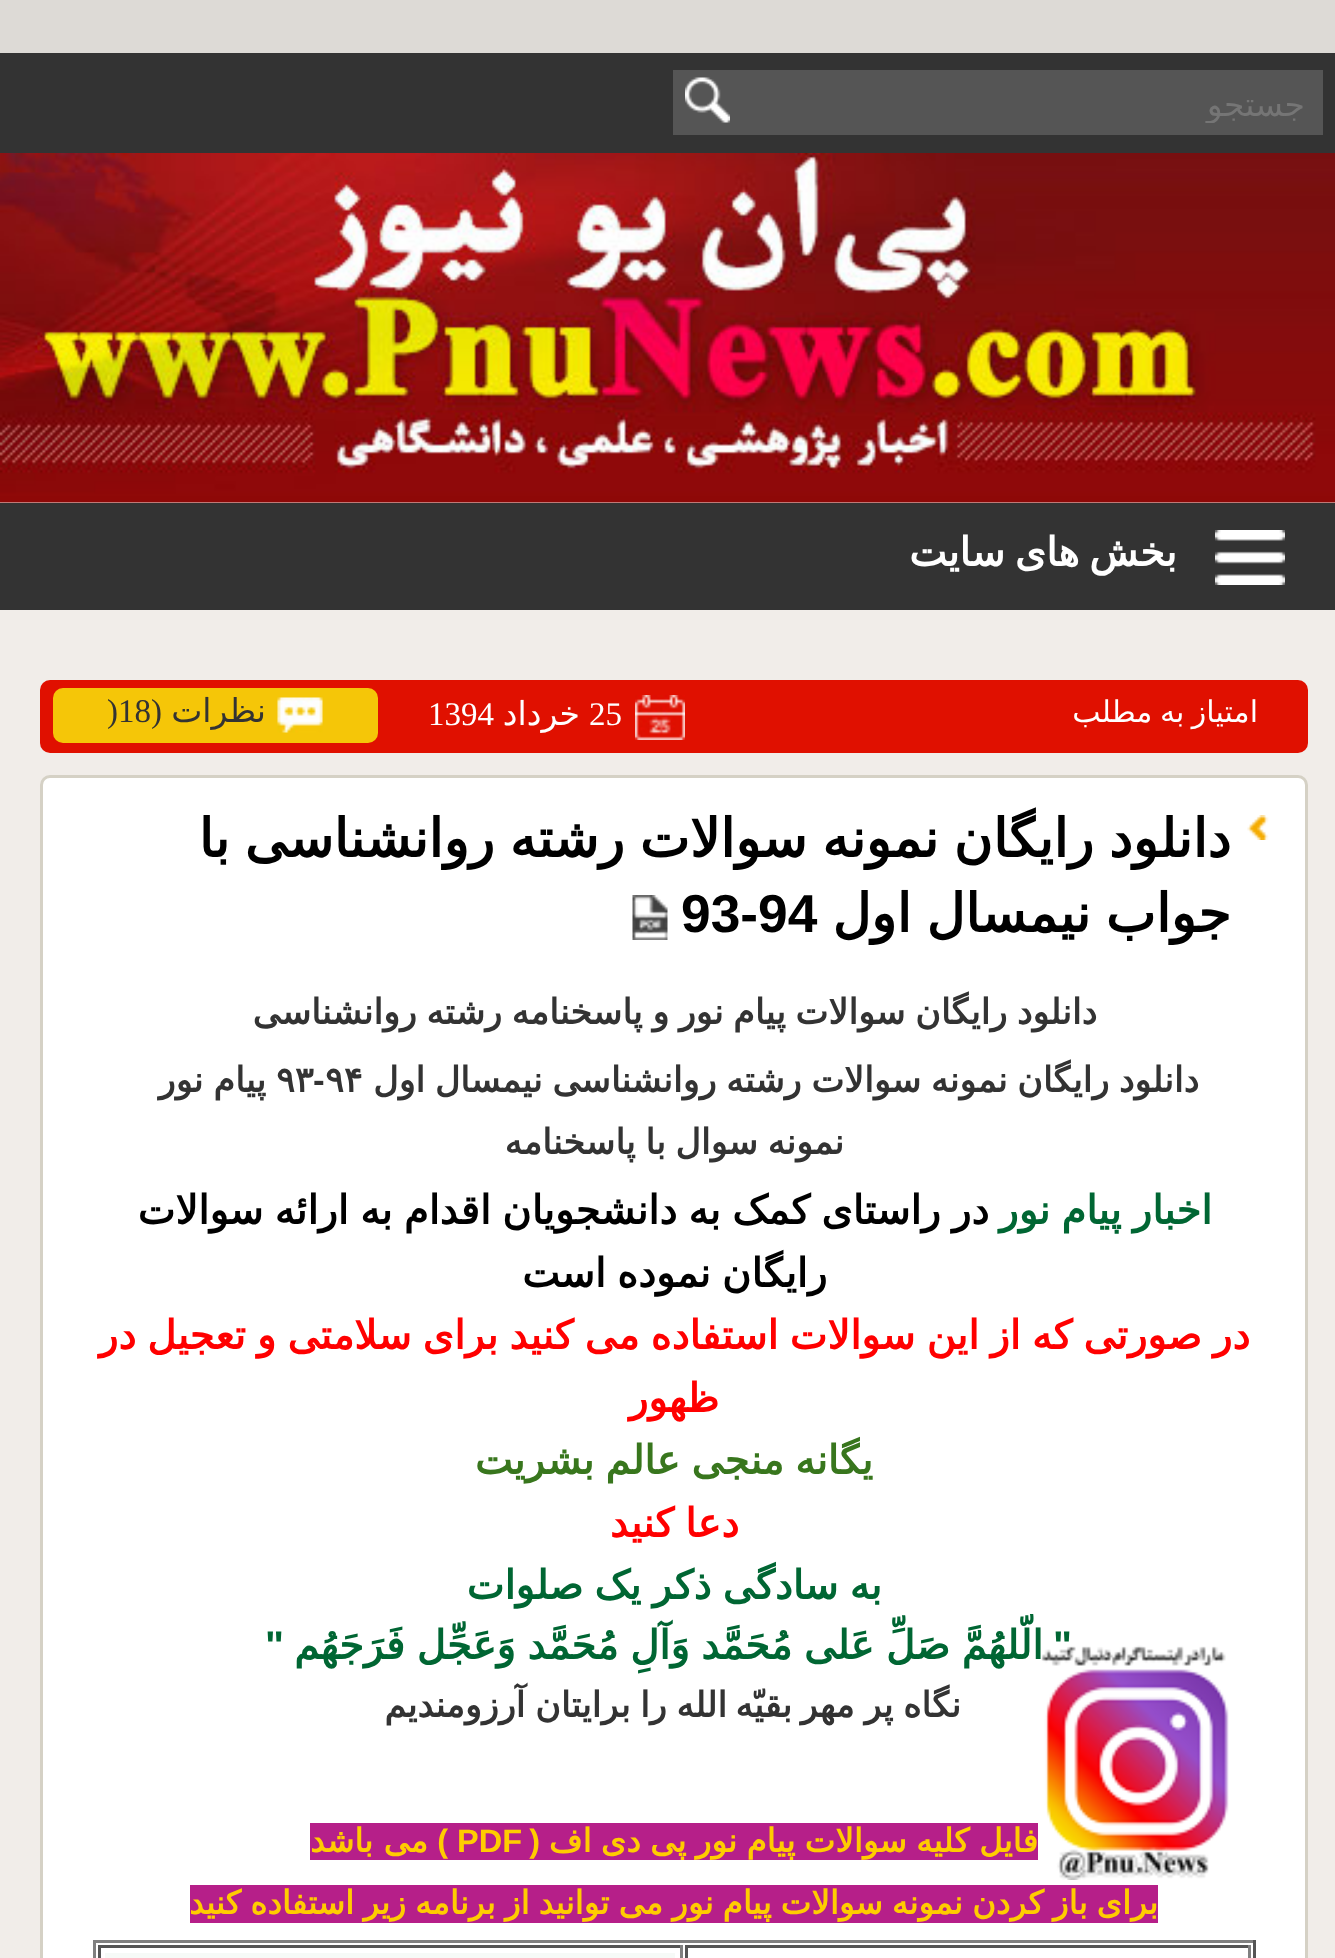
<svg xmlns="http://www.w3.org/2000/svg" width="1335" height="1958">
	<defs>
		<clipPath id="clip1"><rect x="735" y="85" width="570" height="38" /></clipPath>
	</defs>
	<rect width="100%" height="100%" fill="#DDDAD6" />
	<rect x="0" y="502" width="1335" height="1456" fill="#F1EDE9" />
	<rect x="0" y="53" width="1335" height="100" fill="#333333" />
	<rect x="673" y="70" width="650" height="65" fill="#555555" />
	<g clip-path="url(#clip1)">
		<text x="1305" y="116" font-family="DejaVu Sans" font-size="33" direction="rtl" fill="#757575">جستجو</text>
	</g>
	<image x="685" y="77" width="45" height="46" href="assets/img1.png" />
	<image x="0" y="153" width="1335" height="350" href="assets/img2.png" />
	<rect x="0" y="503" width="1335" height="107" fill="#333333" />
	<image x="1215" y="530" width="70" height="55" href="assets/img3.png" />
	<text x="1177" y="566" word-spacing="-3" font-family="DejaVu Sans" font-size="40" font-weight="700" direction="rtl" fill="#FFFFFF">بخش های سایت</text>
	<rect x="40" y="680" width="1268" height="73" rx="10" fill="#E01000" />
	<text x="1258" y="722" word-spacing="-2" font-family="DejaVu Sans" font-size="30" direction="rtl" fill="#FFFFFF">امتیاز به مطلب</text>
	<image x="635" y="695" width="50" height="45" href="assets/img4.png" />
	<text x="589" y="725" font-family="Liberation Serif" font-size="33" fill="#FFFFFF">25</text>
	<text x="580" y="725" font-family="DejaVu Sans" font-size="33" direction="rtl" fill="#FFFFFF">خرداد</text>
	<text x="428" y="725" font-family="Liberation Serif" font-size="33" fill="#FFFFFF">1394</text>
	<rect x="53" y="688" width="325" height="55" rx="10" fill="#F5C608" />
	<image x="277" y="697" width="46" height="36" href="assets/img5.png" />
	<text x="266" y="722" font-family="DejaVu Sans" font-size="33" direction="rtl" fill="#333333">نظرات</text>
	<text x="162" y="722" font-family="Liberation Serif" font-size="33" direction="rtl" fill="#333333">(</text>
	<text x="107" y="722" font-family="Liberation Serif" font-size="33" fill="#333333">)18</text>
	<rect x="41.5" y="776.5" width="1265" height="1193" rx="8.5" fill="#FFFFFF" stroke="#D5D1C5" stroke-width="3" />
	<image x="1247" y="815" width="22" height="25" href="assets/img6.png" />
	<g font-family="DejaVu Sans" font-size="53.3" font-weight="700" direction="rtl" fill="#000000">
		<text x="1231" y="857" word-spacing="-2">دانلود رایگان نمونه سوالات رشته روانشناسی با</text>
		<text x="1231" y="932" word-spacing="-2">جواب نیمسال اول</text>
	</g>
	<text x="681" y="932" font-family="Liberation Sans" font-size="53.3" font-weight="700" fill="#000000">93-94</text>
	<image x="632" y="895" width="36" height="45" href="assets/img7.png" />
	<g font-family="DejaVu Sans" font-size="35" font-weight="700" direction="rtl" fill="#333333">
		<text x="1097" y="1024" word-spacing="-1.5">دانلود رایگان سوالات پیام نور و پاسخنامه رشته روانشناسی</text>
		<text x="1199" y="1092" word-spacing="-1.5">دانلود رایگان نمونه سوالات رشته روانشناسی نیمسال اول</text>
	</g>
	<text x="325" y="1092" font-family="DejaVu Sans" font-size="35" font-weight="700" fill="#333333">۹۴</text>
	<text x="313" y="1092" font-family="Liberation Sans" font-size="35" font-weight="700" fill="#333333">-</text>
	<text x="276" y="1092" font-family="DejaVu Sans" font-size="35" font-weight="700" fill="#333333">۹۳</text>
	<g font-family="DejaVu Sans" font-size="35" font-weight="700" direction="rtl" fill="#333333">
		<text x="266" y="1092" word-spacing="-1">پیام نور</text>
		<text x="844" y="1154" word-spacing="-1.5">نمونه سوال با پاسخنامه</text>
	</g>
	<text x="1212" y="1224" word-spacing="-1.6" font-family="DejaVu Sans" font-size="40" font-weight="700" direction="rtl" fill="#006633">اخبار پیام نور</text>
	<g font-family="DejaVu Sans" font-size="40" font-weight="700" direction="rtl" fill="#000000">
		<text x="989" y="1224" word-spacing="-1.5">در راستای کمک به دانشجویان اقدام به ارائه سوالات</text>
		<text x="827" y="1287" word-spacing="-1.6">رایگان نموده است</text>
	</g>
	<g font-family="DejaVu Sans" font-size="40" font-weight="700" direction="rtl" fill="#FF0000">
		<text x="1250" y="1349" word-spacing="-1.6">در صورتی که از این سوالات استفاده می کنید برای سلامتی و تعجیل در</text>
		<text x="719" y="1412">ظهور</text>
	</g>
	<text x="873" y="1474" word-spacing="-1.6" font-family="DejaVu Sans" font-size="40" font-weight="700" direction="rtl" fill="#38761D">یگانه منجی عالم بشریت</text>
	<text x="739" y="1537" word-spacing="-1.6" font-family="DejaVu Sans" font-size="40" font-weight="700" direction="rtl" fill="#FF0000">دعا کنید</text>
	<text x="882" y="1599" word-spacing="-1.6" font-family="DejaVu Sans" font-size="40" font-weight="700" direction="rtl" fill="#006633">به سادگی ذکر یک صلوات</text>
	<text x="1072" y="1659" font-family="Liberation Sans" font-size="40" font-weight="700" direction="rtl" fill="#006633">"</text>
	<text x="1043" y="1659" word-spacing="-1.25" font-family="DejaVu Sans" font-size="40" font-weight="700" direction="rtl" fill="#006633">الّلهُمَّ صَلِّ عَلی مُحَمَّد وَآلِ مُحَمَّد وَعَجِّل فَرَجَهُم</text>
	<text x="284" y="1659" font-family="Liberation Sans" font-size="40" font-weight="700" direction="rtl" fill="#006633">"</text>
	<g font-family="DejaVu Sans" font-size="35" font-weight="700" direction="rtl" fill="#333333">
		<text x="961" y="1717" word-spacing="-1.5">نگاه پر مهر</text>
		<text x="792" y="1717">بقیّه</text>
		<text x="727" y="1717" word-spacing="-1.5">الله را برایتان آرزومندیم</text>
	</g>
	<rect x="310" y="1823" width="728" height="37" fill="#B61F89" />
	<text x="1038" y="1852" word-spacing="-1" font-family="DejaVu Sans" font-size="32.5" font-weight="700" direction="rtl" fill="#FFCC00">فایل کلیه سوالات پیام نور پی دی اف</text>
	<text x="540" y="1852" font-family="Liberation Sans" font-size="32.5" font-weight="700" direction="rtl" fill="#FFCC00">(</text>
	<text x="457" y="1852" font-family="Liberation Sans" font-size="32.5" font-weight="700" fill="#FFCC00">PDF</text>
	<text x="448" y="1852" font-family="Liberation Sans" font-size="32.5" font-weight="700" direction="rtl" fill="#FFCC00">)</text>
	<text x="428" y="1852" font-family="DejaVu Sans" font-size="32.5" font-weight="700" direction="rtl" fill="#FFCC00">می باشد</text>
	<rect x="190" y="1885" width="968" height="38" fill="#B61F89" />
	<text x="1158" y="1914" word-spacing="-1.25" font-family="DejaVu Sans" font-size="32.5" font-weight="700" direction="rtl" fill="#FFCC00">برای باز کردن نمونه سوالات پیام نور می توانید از برنامه زیر استفاده کنید</text>
	<rect x="93" y="1940" width="1162" height="3" fill="#808080" />
	<rect x="1253" y="1940" width="3" height="18" fill="#555555" />
	<rect x="93" y="1940" width="3" height="18" fill="#808080" />
	<rect x="685" y="1945" width="565" height="3" fill="#555555" />
	<rect x="1248" y="1945" width="3" height="13" fill="#808080" />
	<rect x="685" y="1945" width="3" height="13" fill="#555555" />
	<rect x="98" y="1945" width="585" height="3" fill="#555555" />
	<rect x="680" y="1945" width="3" height="13" fill="#808080" />
	<rect x="98" y="1945" width="3" height="13" fill="#555555" />
	<rect x="105" y="1953" width="570" height="5" fill="#F6FAF7" />
	<image x="1041" y="1645" width="188" height="235" href="assets/img8.png" />
</svg>
